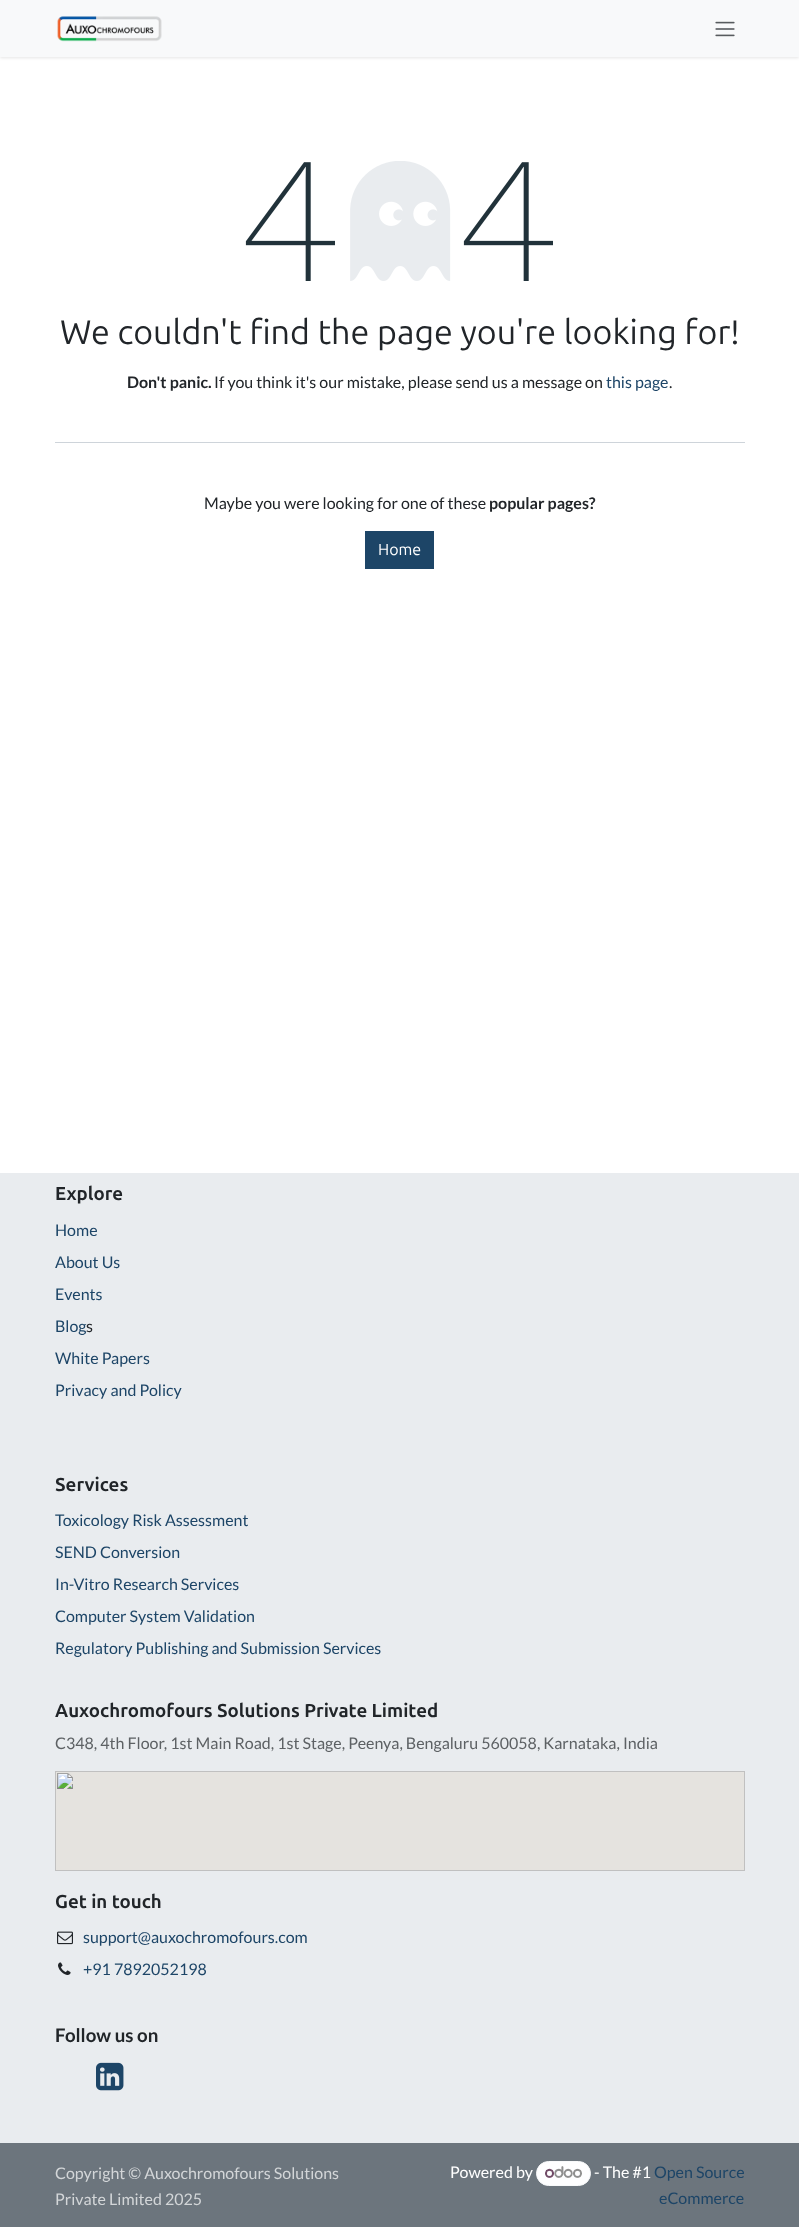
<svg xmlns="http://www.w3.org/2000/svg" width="799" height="2227">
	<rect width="100%" height="100%" fill="#FFFFFF" />
	<rect x="0" y="1" width="799" height="57" fill="#000000" fill-opacity="0.1" filter="blur(1.5px)" />
	<rect x="0" y="0" width="799" height="57" fill="#F8F9FA" />
	<image x="57" y="16" width="105" height="26" href="assets/img1.png" />
	<image x="715" y="21" width="20" height="16" href="assets/img2.png" />
	<image x="245" y="161" width="308" height="120" href="assets/img3.png" />
	<text x="60" y="344" font-family="Ubuntu Sans" font-size="34" fill="#212529">We couldn't find the page you're looking for!</text>
	<text x="127" y="388" font-family="Lato" font-size="16" font-weight="700" fill="#212529">Don't panic.</text>
	<text x="214" y="388" font-family="Lato" font-size="16" fill="#212529">If you think it's our mistake, please send us a message on</text>
	<text x="606" y="388" font-family="Lato" font-size="16" fill="#1D4567">this page</text>
	<text x="669" y="388" font-family="Lato" font-size="16" fill="#212529">.</text>
	<rect x="55" y="442" width="690" height="1" fill="#CED4DA" />
	<text x="204" y="509" font-family="Lato" font-size="16" fill="#212529">Maybe you were looking for one of these</text>
	<text x="489" y="509" font-family="Lato" font-size="16" font-weight="700" fill="#212529">popular pages?</text>
	<rect x="365" y="531" width="69" height="38" fill="#1D4567" />
	<text x="378" y="555" font-family="Ubuntu Sans" font-size="16" fill="#FFFFFF">Home</text>
	<rect x="0" y="1173" width="799" height="970" fill="#E9ECEF" />
	<text x="55" y="1200" font-family="Ubuntu Sans" font-size="18.7" font-weight="700" fill="#212529">Explore</text>
	<g font-family="Lato" font-size="16" fill="#1D4567">
		<text x="55" y="1236">Home</text>
		<text x="55" y="1268">About Us</text>
		<text x="55" y="1300">Events</text>
		<text x="55" y="1332">Blog</text>
	</g>
	<text x="86" y="1332" font-family="Lato" font-size="16" fill="#212529">s</text>
	<g font-family="Lato" font-size="16" fill="#1D4567">
		<text x="55" y="1364">White Papers</text>
		<text x="55" y="1396">Privacy and Policy</text>
	</g>
	<text x="55" y="1491" font-family="Ubuntu Sans" font-size="18.7" font-weight="700" fill="#212529">Services</text>
	<g font-family="Lato" font-size="16" fill="#1D4567">
		<text x="55" y="1526">Toxicology Risk Assessment</text>
		<text x="55" y="1558">SEND Conversion</text>
		<text x="55" y="1590">In-Vitro Research Services</text>
		<text x="55" y="1622">Computer System Validation</text>
		<text x="55" y="1654">Regulatory Publishing and Submission Services</text>
	</g>
	<text x="55" y="1717" font-family="Ubuntu Sans" font-size="18.7" font-weight="700" fill="#212529">Auxochromofours Solutions Private Limited</text>
	<text x="55" y="1749" font-family="Lato" font-size="16" fill="#5D6164">C348, 4th Floor, 1st Main Road, 1st Stage, Peenya, Bengaluru 560058, Karnataka, India</text>
	<image x="55" y="1771" width="690" height="100" href="assets/img4.png" />
	<text x="55" y="1908" font-family="Ubuntu Sans" font-size="18.7" font-weight="700" fill="#212529">Get in touch</text>
	<image x="57" y="1931" width="16" height="14" href="assets/img5.png" />
	<text x="83" y="1943" font-family="Lato" font-size="16" fill="#1D4567">support@auxochromofours.com</text>
	<image x="58" y="1962" width="13" height="13" href="assets/img6.png" />
	<text x="83" y="1975" font-family="Lato" font-size="16" fill="#1D4567">+91 7892052198</text>
	<text x="55" y="2042" font-family="Lato" font-size="18.7" font-weight="700" fill="#212529">Follow us on</text>
	<image x="96" y="2062" width="28" height="29" href="assets/img7.png" />
	<rect x="0" y="2143" width="799" height="84" fill="#6C757D" />
	<g font-family="Lato" font-size="16" fill="#D3D6D8">
		<text x="55" y="2179">Copyright © Auxochromofours Solutions</text>
		<text x="55" y="2205">Private Limited 2025</text>
	</g>
	<text x="450" y="2178" font-family="Lato" font-size="16" fill="#FFFFFF">Powered by</text>
	<rect x="536.5" y="2161.5" width="54" height="24" rx="12" fill="#FEFEFF" stroke="#F8F9FA" />
	<image x="545" y="2166" width="37" height="12" href="assets/img8.png" />
	<text x="594" y="2178" font-family="Lato" font-size="16" fill="#FFFFFF">- The #1</text>
	<g font-family="Lato" font-size="16" fill="#1D4567">
		<text x="654" y="2178">Open Source</text>
		<text x="659" y="2204">eCommerce</text>
	</g>
</svg>
